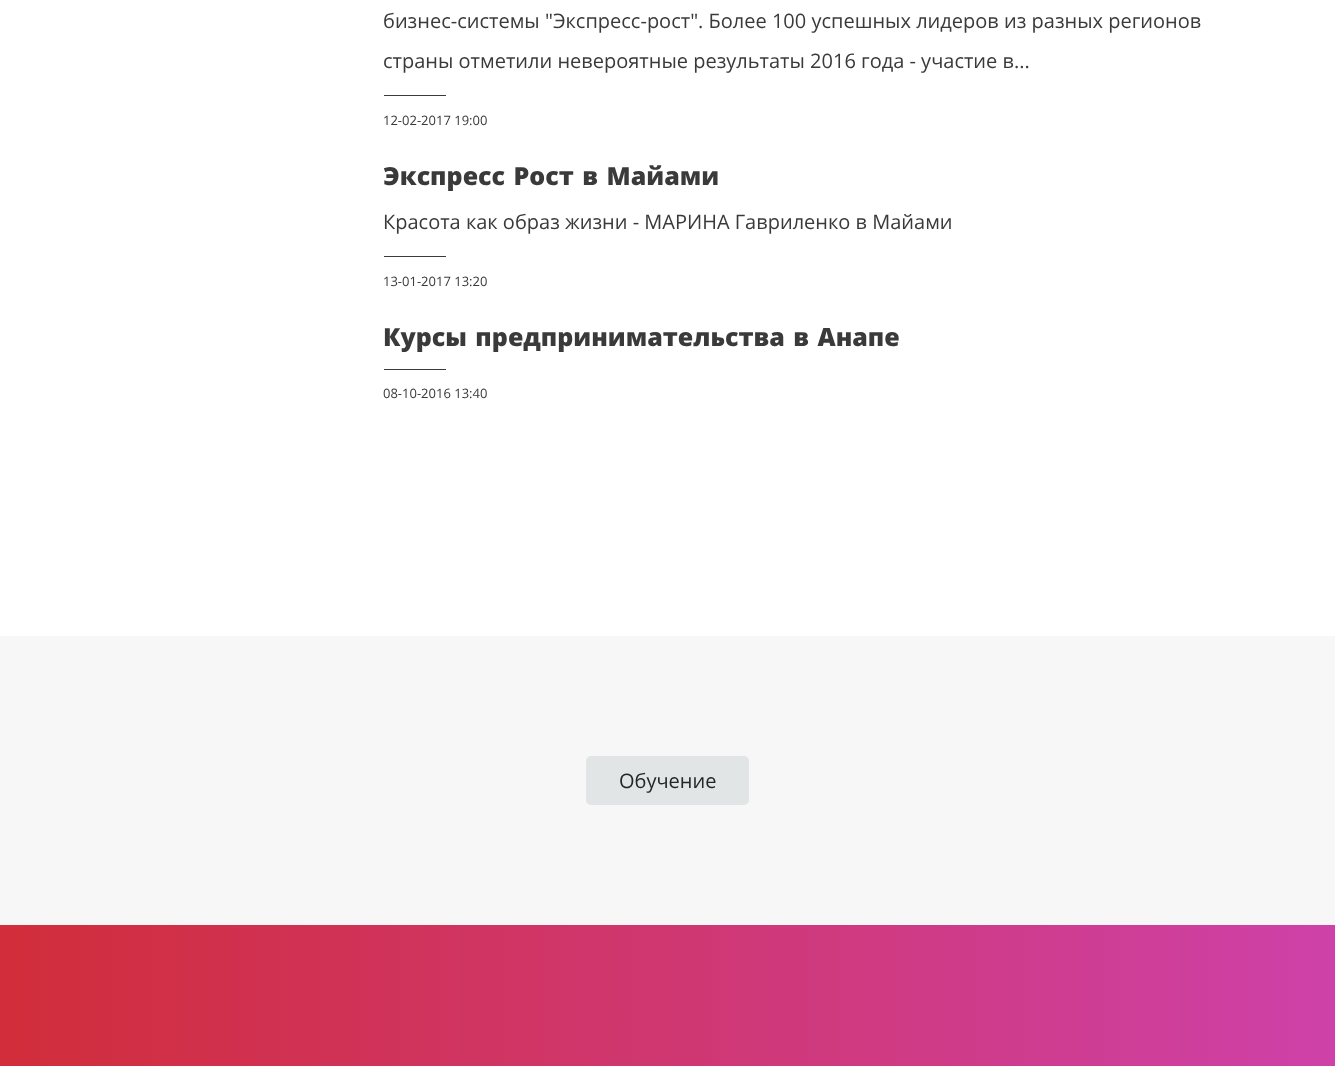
<svg xmlns="http://www.w3.org/2000/svg" width="1335" height="1066">
	<defs>
		<linearGradient id="g1" gradientUnits="userSpaceOnUse" x1="0" y1="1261" x2="1335" y2="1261"><stop offset="0" stop-color="#D12D3A" /><stop offset="1" stop-color="#CE41A8" /></linearGradient>
	</defs>
	<rect width="100%" height="100%" fill="#FFFFFF" />
	<g font-family="Open Sans" font-size="20" fill="#3A3A3A">
		<text x="383" y="28">бизнес-системы "Экспресс-рост". Более 100 успешных лидеров из разных регионов</text>
		<text x="383" y="68">страны отметили невероятные результаты 2016 года - участие в...</text>
	</g>
	<rect x="384" y="95" width="62" height="1" fill="#3A3A3A" />
	<text x="383" y="125" font-family="Open Sans" font-size="13" fill="#3A3A3A">12-02-2017 19:00</text>
	<text x="383" y="185" word-spacing="2" font-family="Open Sans" font-size="25" font-weight="800" fill="#3A3A3A">Экспресс Рост в Майами</text>
	<text x="383" y="229" font-family="Open Sans" font-size="20" fill="#3A3A3A">Красота как образ жизни - МАРИНА Гавриленко в Майами</text>
	<rect x="384" y="256" width="62" height="1" fill="#3A3A3A" />
	<text x="383" y="286" font-family="Open Sans" font-size="13" fill="#3A3A3A">13-01-2017 13:20</text>
	<text x="383" y="346" word-spacing="2" font-family="Open Sans" font-size="25" font-weight="800" fill="#3A3A3A">Курсы предпринимательства в Анапе</text>
	<rect x="384" y="369" width="62" height="1" fill="#3A3A3A" />
	<text x="383" y="398" font-family="Open Sans" font-size="13" fill="#3A3A3A">08-10-2016 13:40</text>
	<rect x="0" y="636" width="1335" height="289" fill="#F7F7F7" />
	<rect x="586" y="756" width="163" height="49" rx="5" fill="#E1E5E6" />
	<text x="619" y="788" font-family="Open Sans" font-size="20" fill="#252626">Обучение</text>
	<rect x="0" y="925" width="1335" height="141" fill="url(#g1)" />
</svg>
